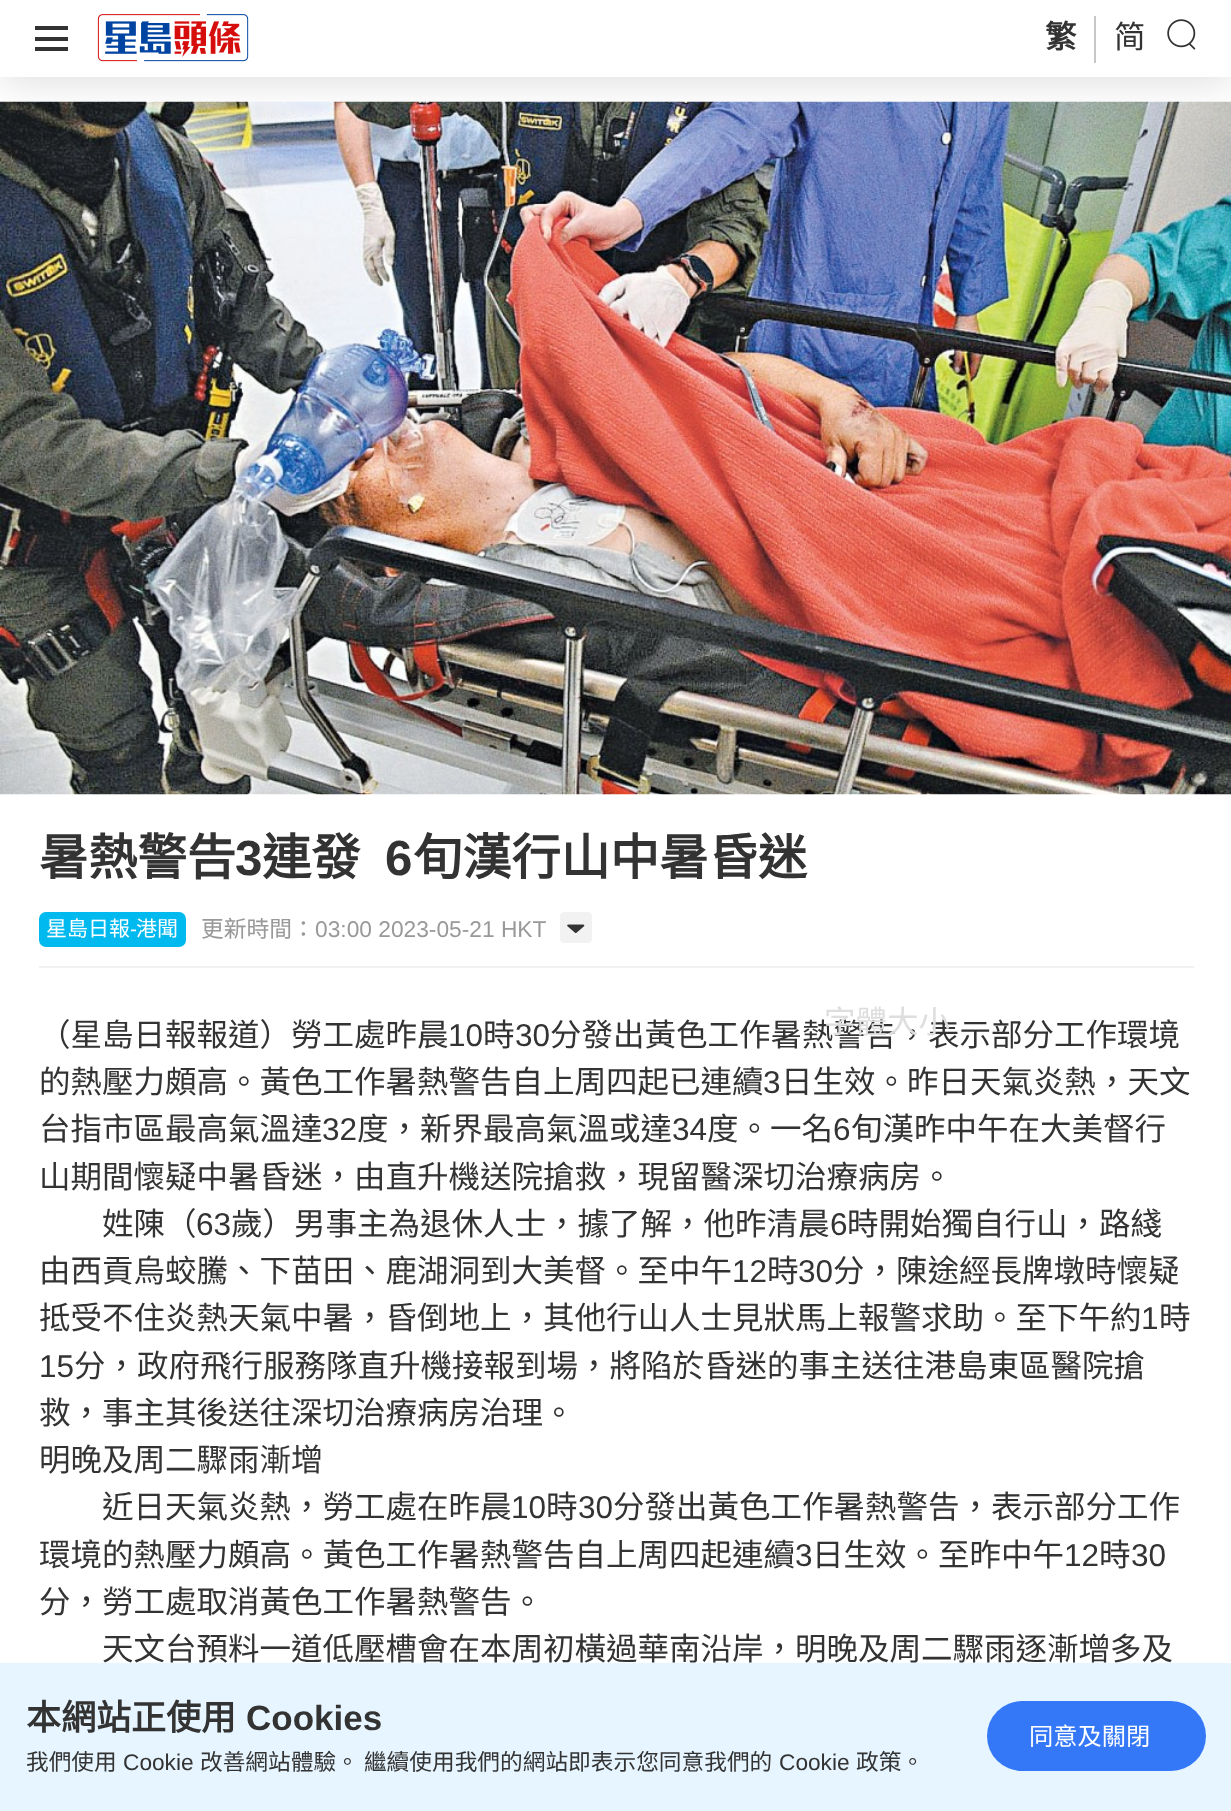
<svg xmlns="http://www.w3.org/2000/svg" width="1231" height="1811">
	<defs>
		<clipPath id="clip1"><rect x="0" y="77" width="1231" height="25" /></clipPath>
	</defs>
	<rect width="100%" height="100%" fill="#FFFFFF" />
	<image x="0" y="101" width="1231" height="694" href="assets/img3.png" />
	<g clip-path="url(#clip1)">
		<rect x="0" y="2" width="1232" height="77" fill="#000000" fill-opacity="0.15" filter="blur(21px)" />
	</g>
	<rect x="35" y="26" width="33" height="4" fill="#333333" />
	<rect x="35" y="37" width="33" height="4" fill="#333333" />
	<rect x="35" y="47" width="33" height="4" fill="#333333" />
	<image x="97" y="14" width="152" height="48" href="assets/img1.png" />
	<rect x="1094" y="16" width="2" height="47" fill="#C7C7C7" />
	<text x="1045" y="48" font-family="Noto Sans CJK HK" font-size="31.5" font-weight="700" fill="#333333">繁</text>
	<text x="1114" y="48" font-family="Noto Sans CJK HK" font-size="31.5" fill="#333333">简</text>
	<image x="1167" y="19" width="29" height="31" href="assets/img2.png" />
	<text x="39" y="875" font-family="Noto Sans CJK HK" font-size="49.25" font-weight="700" fill="#333333">暑熱警告</text>
	<text x="235" y="875" font-family="Liberation Sans" font-size="49.25" font-weight="700" fill="#333333">3</text>
	<text x="262" y="875" font-family="Noto Sans CJK HK" font-size="49.25" font-weight="700" fill="#333333">連發</text>
	<text x="385" y="875" font-family="Liberation Sans" font-size="49.25" font-weight="700" fill="#333333">6</text>
	<text x="413" y="875" font-family="Noto Sans CJK HK" font-size="49.25" font-weight="700" fill="#333333">旬漢行山中暑昏迷</text>
	<rect x="39" y="966" width="1155" height="2" fill="#F2F2F2" />
	<rect x="39" y="912" width="147" height="35" rx="7" fill="#00B9EF" />
	<text x="46" y="936" font-family="Noto Sans CJK HK" font-size="21" fill="#FFFFFF">星島日報</text>
	<text x="130" y="936" font-family="Liberation Sans" font-size="21" fill="#FFFFFF">-</text>
	<text x="136" y="936" font-family="Noto Sans CJK HK" font-size="21" fill="#FFFFFF">港聞</text>
	<text x="201" y="937" font-family="Noto Sans CJK HK" font-size="22.75" fill="#999999">更新時間：</text>
	<text x="315" y="937" font-family="Liberation Sans" font-size="22.75" fill="#999999">03:00 2023-05-21 HKT</text>
	<image x="560" y="912" width="32" height="31" href="assets/img4.png" />
	<text x="550" y="1046" font-family="Noto Sans CJK HK" font-size="31.5" fill="#333333">分發出黃色工作暑熱警告，表示部分工作環境</text>
	<text x="824" y="1033" font-family="Noto Sans CJK HK" font-size="31.5" fill="#DEDEDE">字體大小</text>
	<text x="39" y="1046" font-family="Noto Sans CJK HK" font-size="31.5" fill="#333333">（星島日報報道）勞工處昨晨</text>
	<text x="448" y="1046" font-family="Liberation Sans" font-size="31.5" fill="#333333">10</text>
	<text x="483" y="1046" font-family="Noto Sans CJK HK" font-size="31.5" fill="#333333">時</text>
	<text x="515" y="1046" font-family="Liberation Sans" font-size="31.5" fill="#333333">30</text>
	<text x="39" y="1093" font-family="Noto Sans CJK HK" font-size="31.5" fill="#333333">的熱壓力頗高。黃色工作暑熱警告自上周四起已連續</text>
	<text x="763" y="1093" font-family="Liberation Sans" font-size="31.5" fill="#333333">3</text>
	<g font-family="Noto Sans CJK HK" font-size="31.5" fill="#333333">
		<text x="781" y="1093">日生效。昨日天氣炎熱，天文</text>
		<text x="39" y="1140">台指市區最高氣溫達</text>
	</g>
	<text x="322" y="1140" font-family="Liberation Sans" font-size="31.5" fill="#333333">32</text>
	<text x="357" y="1140" font-family="Noto Sans CJK HK" font-size="31.5" fill="#333333">度，新界最高氣溫或達</text>
	<text x="672" y="1140" font-family="Liberation Sans" font-size="31.5" fill="#333333">34</text>
	<text x="707" y="1140" font-family="Noto Sans CJK HK" font-size="31.5" fill="#333333">度。一名</text>
	<text x="833" y="1140" font-family="Liberation Sans" font-size="31.5" fill="#333333">6</text>
	<g font-family="Noto Sans CJK HK" font-size="31.5" fill="#333333">
		<text x="851" y="1140">旬漢昨中午在大美督行</text>
		<text x="39" y="1188">山期間懷疑中暑昏迷，由直升機送院搶救，現留醫深切治療病房。</text>
		<text x="102" y="1235">姓陳（</text>
	</g>
	<text x="196" y="1235" font-family="Liberation Sans" font-size="31.5" fill="#333333">63</text>
	<text x="231" y="1235" font-family="Noto Sans CJK HK" font-size="31.5" fill="#333333">歲）男事主為退休人士，據了解，他昨清晨</text>
	<text x="830" y="1235" font-family="Liberation Sans" font-size="31.5" fill="#333333">6</text>
	<g font-family="Noto Sans CJK HK" font-size="31.5" fill="#333333">
		<text x="847" y="1235">時開始獨自行山，路綫</text>
		<text x="39" y="1282">由西貢烏蛟騰、下苗田、鹿湖洞到大美督。至中午</text>
	</g>
	<text x="732" y="1282" font-family="Liberation Sans" font-size="31.5" fill="#333333">12</text>
	<text x="767" y="1282" font-family="Noto Sans CJK HK" font-size="31.5" fill="#333333">時</text>
	<text x="798" y="1282" font-family="Liberation Sans" font-size="31.5" fill="#333333">30</text>
	<g font-family="Noto Sans CJK HK" font-size="31.5" fill="#333333">
		<text x="833" y="1282">分，陳途經長牌墩時懷疑</text>
		<text x="39" y="1329">抵受不住炎熱天氣中暑，昏倒地上，其他行山人士見狀馬上報警求助。至下午約</text>
	</g>
	<text x="1141" y="1329" font-family="Liberation Sans" font-size="31.5" fill="#333333">1</text>
	<text x="1159" y="1329" font-family="Noto Sans CJK HK" font-size="31.5" fill="#333333">時</text>
	<text x="39" y="1377" font-family="Liberation Sans" font-size="31.5" fill="#333333">15</text>
	<g font-family="Noto Sans CJK HK" font-size="31.5" fill="#333333">
		<text x="74" y="1377">分，政府飛行服務隊直升機接報到場，將陷於昏迷的事主送往港島東區醫院搶</text>
		<text x="39" y="1424">救，事主其後送往深切治療病房治理。</text>
		<text x="39" y="1471">明晚及周二驟雨漸增</text>
		<text x="102" y="1518">近日天氣炎熱，勞工處在昨晨</text>
	</g>
	<text x="511" y="1518" font-family="Liberation Sans" font-size="31.5" fill="#333333">10</text>
	<text x="546" y="1518" font-family="Noto Sans CJK HK" font-size="31.5" fill="#333333">時</text>
	<text x="578" y="1518" font-family="Liberation Sans" font-size="31.5" fill="#333333">30</text>
	<g font-family="Noto Sans CJK HK" font-size="31.5" fill="#333333">
		<text x="613" y="1518">分發出黃色工作暑熱警告，表示部分工作</text>
		<text x="39" y="1566">環境的熱壓力頗高。黃色工作暑熱警告自上周四起連續</text>
	</g>
	<text x="795" y="1566" font-family="Liberation Sans" font-size="31.5" fill="#333333">3</text>
	<text x="812" y="1566" font-family="Noto Sans CJK HK" font-size="31.5" fill="#333333">日生效。至昨中午</text>
	<text x="1064" y="1566" font-family="Liberation Sans" font-size="31.5" fill="#333333">12</text>
	<text x="1099" y="1566" font-family="Noto Sans CJK HK" font-size="31.5" fill="#333333">時</text>
	<text x="1131" y="1566" font-family="Liberation Sans" font-size="31.5" fill="#333333">30</text>
	<g font-family="Noto Sans CJK HK" font-size="31.5" fill="#333333">
		<text x="39" y="1613">分，勞工處取消黃色工作暑熱警告。</text>
		<text x="102" y="1660">天文台預料一道低壓槽會在本周初橫過華南沿岸，明晚及周二驟雨逐漸增多及</text>
	</g>
	<rect x="0" y="1663" width="1231" height="148" fill="#E6F5FF" />
	<text x="26" y="1730" font-family="Noto Sans CJK HK" font-size="35" font-weight="700" fill="#333333">本網站正使用</text>
	<text x="246" y="1730" font-family="Liberation Sans" font-size="35" font-weight="700" fill="#333333">Cookies</text>
	<text x="26" y="1770" font-family="Noto Sans CJK HK" font-size="22.7" fill="#333333">我們使用</text>
	<text x="123" y="1770" font-family="Liberation Sans" font-size="22.7" fill="#333333">Cookie</text>
	<text x="200" y="1770" font-family="Noto Sans CJK HK" font-size="22.7" fill="#333333">改善網站體驗。 繼續使用我們的網站即表示您同意我們的</text>
	<text x="779" y="1770" font-family="Liberation Sans" font-size="22.7" fill="#333333">Cookie</text>
	<text x="856" y="1770" font-family="Noto Sans CJK HK" font-size="22.7" fill="#333333">政策。</text>
	<rect x="987" y="1701" width="219" height="70" rx="35" fill="#3478F7" />
	<text x="1029" y="1745" font-family="Noto Sans CJK HK" font-size="24.25" fill="#FFFFFF">同意及關閉</text>
</svg>
